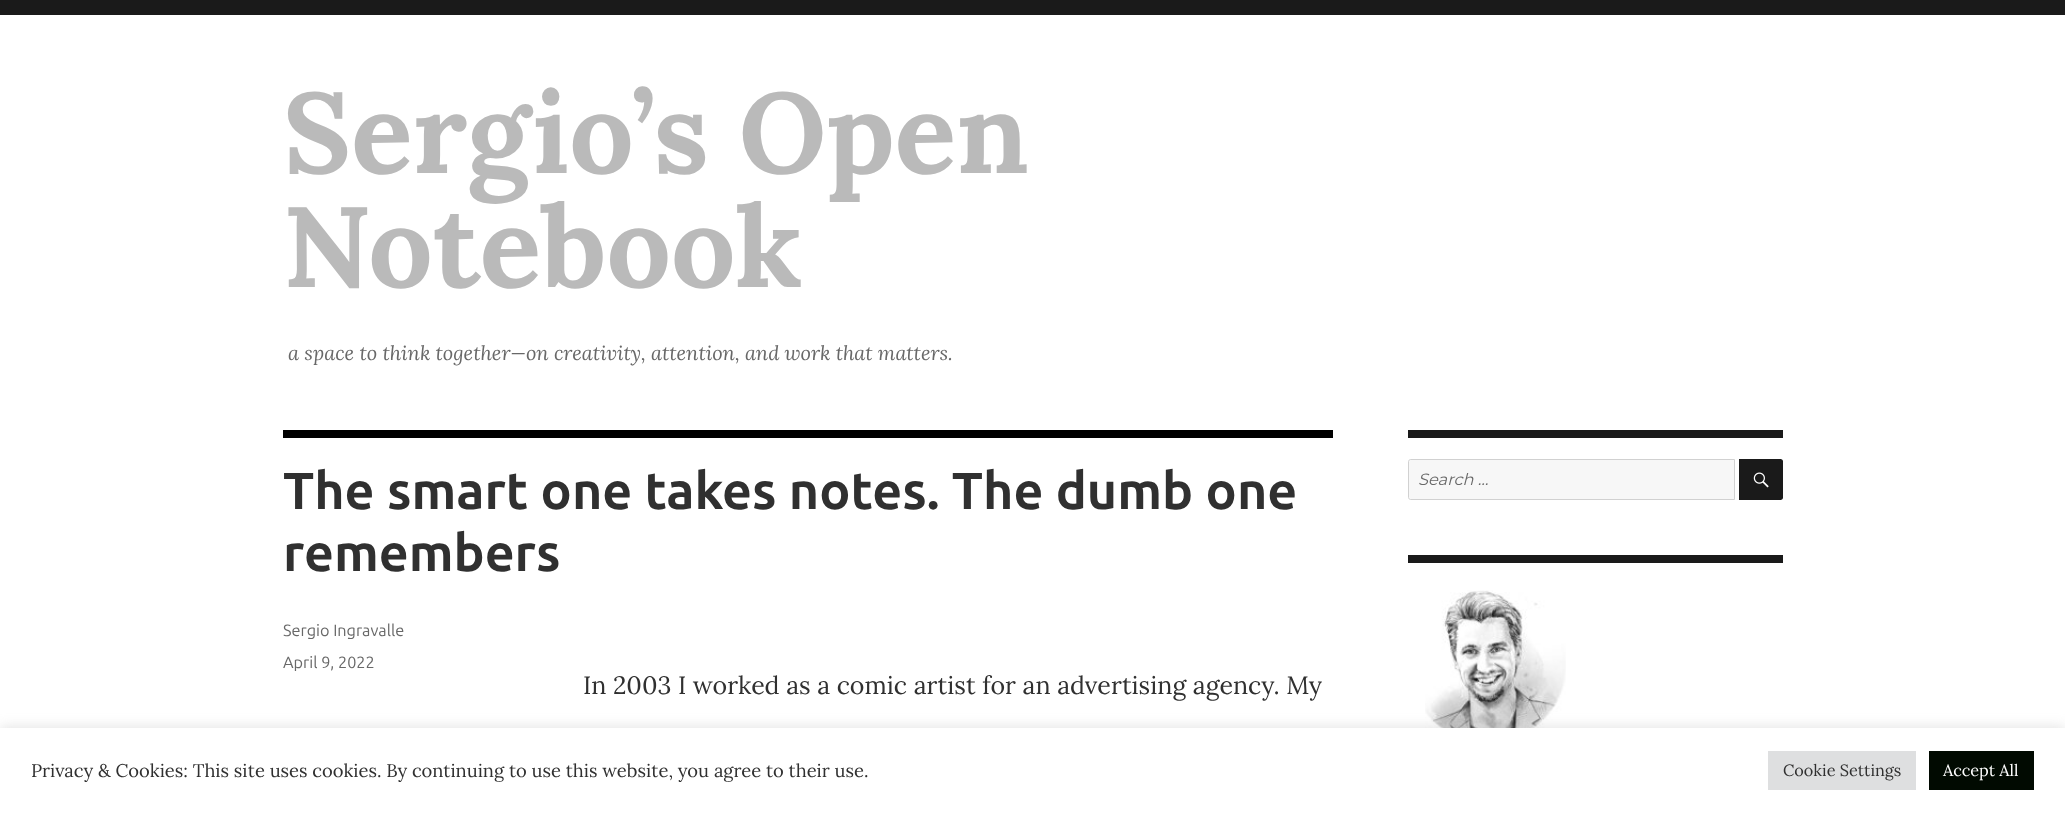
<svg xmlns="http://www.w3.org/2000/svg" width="2065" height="813">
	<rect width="100%" height="100%" fill="#1A1A1A" />
	<rect x="0" y="15" width="2065" height="713" fill="#FFFFFF" />
	<g font-family="Lora" font-size="114" font-weight="700" fill="#BABABA">
		<text x="283" y="173">Sergio’s Open</text>
		<text x="283" y="287">Notebook</text>
	</g>
	<text x="288" y="360" font-family="Lora" font-size="20" font-style="italic" fill="#686868">a space to think together—on creativity, attention, and work that matters.</text>
	<rect x="283" y="430" width="1050" height="8" fill="#000000" />
	<g font-family="Ubuntu" font-size="52" font-weight="700" fill="#303030">
		<text x="283" y="509">The smart one takes notes. The dumb one</text>
		<text x="283" y="571">remembers</text>
	</g>
	<g font-family="Ubuntu" font-size="16.25" fill="#686868">
		<text x="283" y="636">Sergio Ingravalle</text>
		<text x="283" y="668">April 9, 2022</text>
	</g>
	<text x="583" y="694" font-family="Lora" font-size="25" fill="#303030">In 2003 I worked as a comic artist for an advertising agency. My</text>
	<rect x="1408" y="430" width="375" height="8" fill="#1A1A1A" />
	<path d="M1410.5 459.5H1734.5V499.5H1410.5C1409.5 499.5 1408.5 498.5 1408.5 497.5V461.5C1408.5 460.5 1409.5 459.5 1410.5 459.5Z" fill="#F7F7F7" stroke="#D1D1D1" />
	<text x="1418" y="485" font-family="Montserrat" font-size="16.25" font-style="italic" fill="#686868">Search …</text>
	<path d="M1739 459H1780.5C1782 459 1783 460 1783 461.5V497.5C1783 499 1782 500 1780.5 500H1739Z" fill="#1A1A1A" />
	<image x="1753" y="472" width="16" height="16" href="assets/img1.png" />
	<rect x="1408" y="555" width="375" height="8" fill="#1A1A1A" />
	<image x="1425" y="590" width="141" height="138" href="assets/img2.png" />
	<rect x="0" y="726" width="2065" height="87" fill="#ACABAB" fill-opacity="0.3" filter="blur(6px)" />
	<rect x="0" y="728" width="2065" height="85" fill="#FFFFFF" />
	<text x="31" y="777" font-family="Lora" font-size="18.35" fill="#303030">Privacy &amp; Cookies: This site uses cookies. By continuing to use this website, you agree to their use.</text>
	<rect x="1768" y="751" width="148" height="39" fill="#DEDFE0" />
	<text x="1783" y="776" font-family="Lora" font-size="16.25" fill="#303030">Cookie Settings</text>
	<rect x="1929" y="751" width="105" height="39" fill="#010A01" />
	<text x="1943" y="776" font-family="Lora" font-size="16.25" fill="#FFFFFF">Accept All</text>
</svg>
